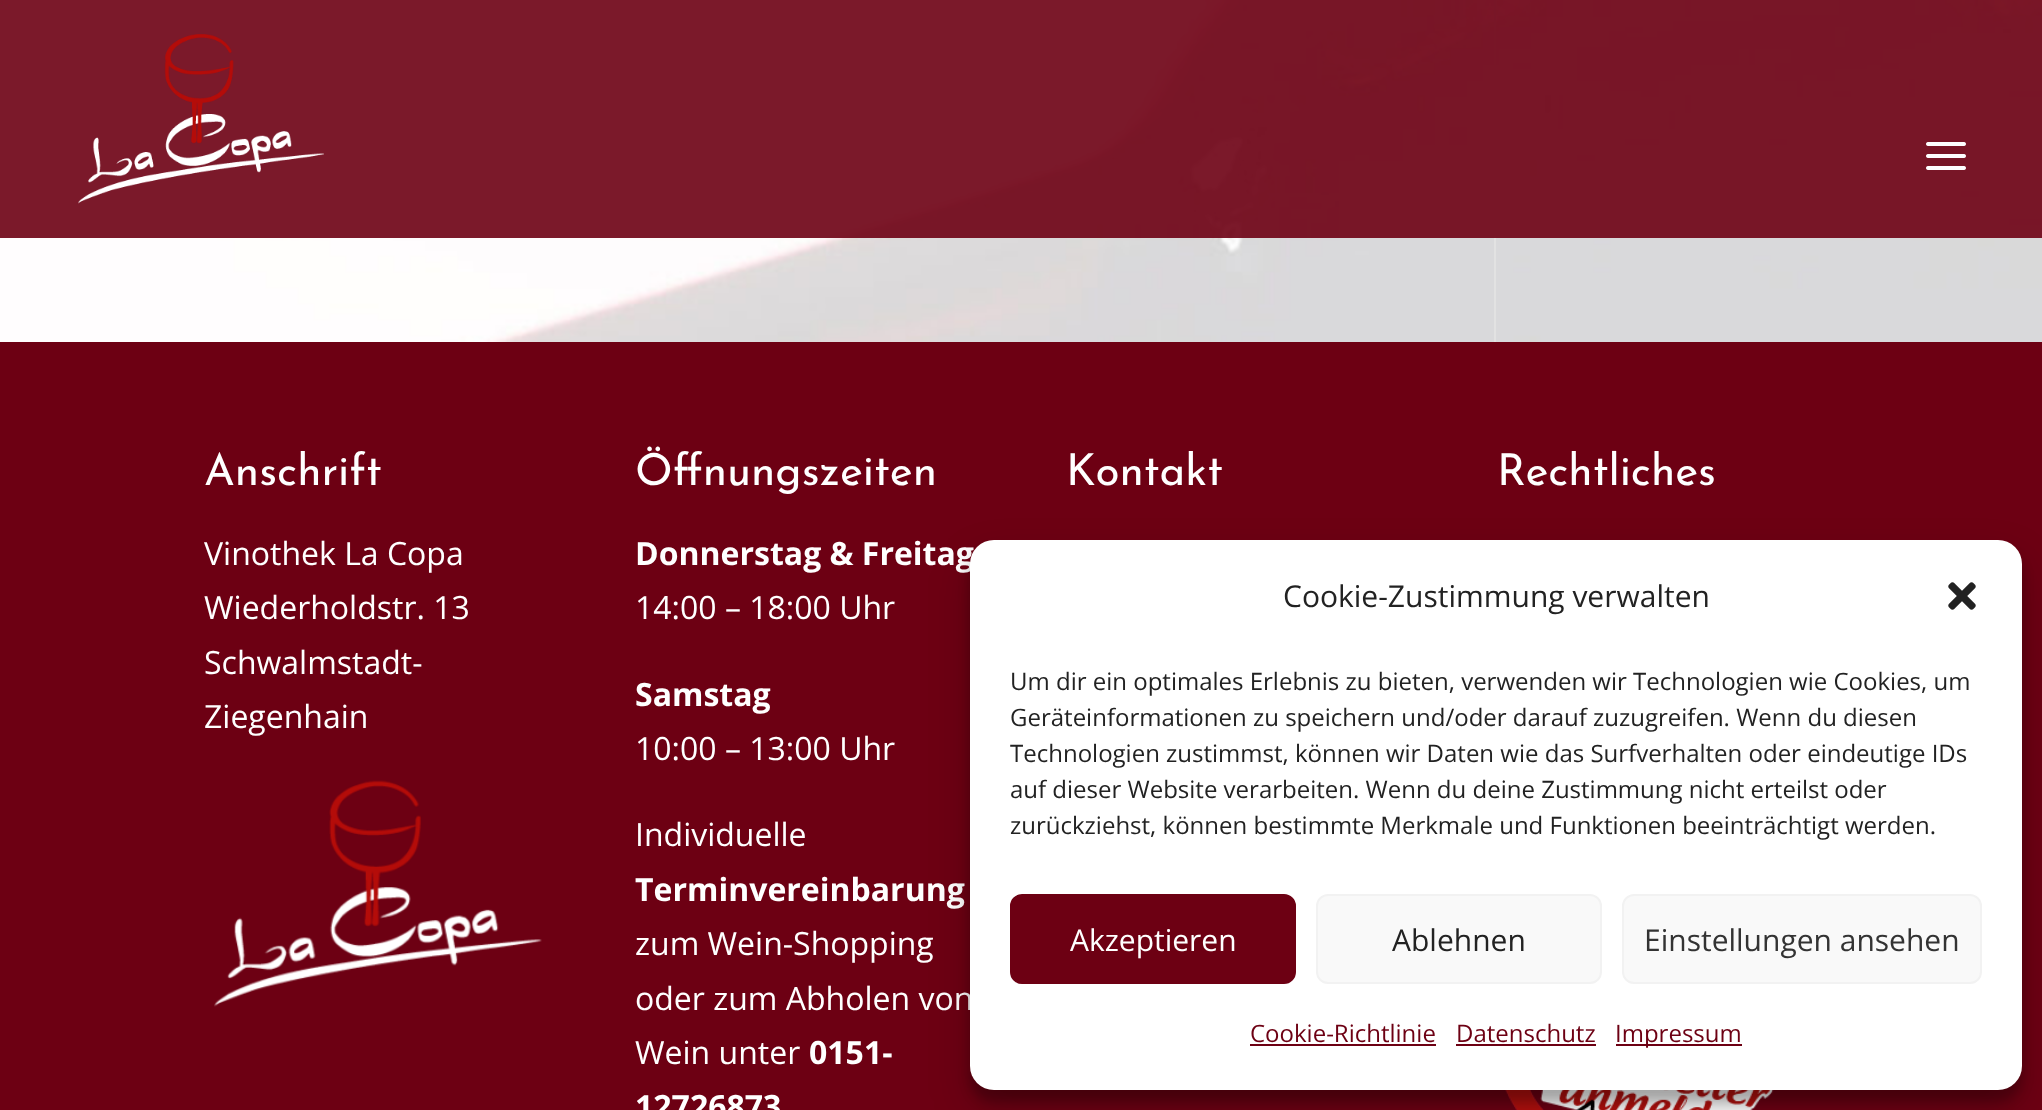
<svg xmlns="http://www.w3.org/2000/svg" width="2042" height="1110">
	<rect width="100%" height="100%" fill="#FFFFFF" />
	<image x="0" y="0" width="2042" height="342" href="assets/img3.png" />
	<rect x="1494" y="0" width="2" height="342" fill="#E2E2E2" />
	<rect x="0" y="0" width="2042" height="238" fill="#6D0013" fill-opacity="0.9" />
	<image x="78" y="34" width="246" height="170" href="assets/img1.png" />
	<image x="1926" y="142" width="40" height="28" href="assets/img2.png" />
	<rect x="0" y="342" width="2042" height="768" fill="#6D0013" />
	<text x="204" y="485" font-family="Josefin Sans" font-size="44" font-weight="100" fill="#FFFFFF">Anschrift</text>
	<g font-family="Open Sans" font-size="32" fill="#FFFFFF">
		<text x="204" y="565">Vinothek La Copa</text>
		<text x="204" y="619">Wiederholdstr. 13</text>
		<text x="204" y="674">Schwalmstadt-</text>
		<text x="204" y="728">Ziegenhain</text>
	</g>
	<image x="214" y="780" width="328" height="227" href="assets/img4.png" />
	<text x="635" y="485" font-family="Josefin Sans" font-size="44" font-weight="100" fill="#FFFFFF">Öffnungszeiten</text>
	<text x="635" y="565" font-family="Open Sans" font-size="32" font-weight="700" fill="#FFFFFF">Donnerstag &amp; Freitag</text>
	<text x="635" y="619" font-family="Open Sans" font-size="32" fill="#FFFFFF">14:00 – 18:00 Uhr</text>
	<text x="635" y="706" font-family="Open Sans" font-size="32" font-weight="700" fill="#FFFFFF">Samstag</text>
	<g font-family="Open Sans" font-size="32" fill="#FFFFFF">
		<text x="635" y="760">10:00 – 13:00 Uhr</text>
		<text x="635" y="846">Individuelle</text>
	</g>
	<text x="635" y="901" font-family="Open Sans" font-size="32" font-weight="700" fill="#FFFFFF">Terminvereinbarung</text>
	<g font-family="Open Sans" font-size="32" fill="#FFFFFF">
		<text x="635" y="955">zum Wein-Shopping</text>
		<text x="635" y="1010">oder zum Abholen von</text>
		<text x="635" y="1064">Wein unter</text>
	</g>
	<g font-family="Open Sans" font-size="32" font-weight="700" fill="#FFFFFF">
		<text x="809" y="1064">0151-</text>
		<text x="635" y="1118">12726873</text>
	</g>
	<g font-family="Josefin Sans" font-size="44" font-weight="100" fill="#FFFFFF">
		<text x="1066" y="485">Kontakt</text>
		<text x="1497" y="485">Rechtliches</text>
	</g>
	<image x="1505" y="1090" width="269" height="20" href="assets/img5.png" />
	<rect x="970" y="552" width="1052" height="550" rx="24" fill="#000000" fill-opacity="0.23" filter="blur(6px)" />
	<rect x="970" y="560" width="1052" height="550" rx="24" fill="#000000" fill-opacity="0.19" filter="blur(20px)" />
	<rect x="970" y="540" width="1052" height="550" rx="24" fill="#FFFFFF" />
	<text x="1283" y="607" font-family="Open Sans" font-size="30" fill="#222222">Cookie-Zustimmung verwalten</text>
	<image x="1948" y="582" width="28" height="28" href="assets/img6.png" />
	<g font-family="Open Sans" font-size="24" fill="#222222">
		<text x="1010" y="690">Um dir ein optimales Erlebnis zu bieten, verwenden wir Technologien wie Cookies, um</text>
		<text x="1010" y="726">Geräteinformationen zu speichern und/oder darauf zuzugreifen. Wenn du diesen</text>
		<text x="1010" y="762">Technologien zustimmst, können wir Daten wie das Surfverhalten oder eindeutige IDs</text>
		<text x="1010" y="798">auf dieser Website verarbeiten. Wenn du deine Zustimmung nicht erteilst oder</text>
		<text x="1010" y="834">zurückziehst, können bestimmte Merkmale und Funktionen beeinträchtigt werden.</text>
	</g>
	<rect x="1011" y="895" width="284" height="88" rx="11" fill="#6D0013" stroke="#6D0013" stroke-width="2" />
	<text x="1070" y="951" font-family="Open Sans" font-size="30" fill="#FFFFFF">Akzeptieren</text>
	<rect x="1317" y="895" width="284" height="88" rx="11" fill="#F9F9F9" stroke="#F2F2F2" stroke-width="2" />
	<text x="1392" y="951" font-family="Open Sans" font-size="30" fill="#222222">Ablehnen</text>
	<rect x="1623" y="895" width="358" height="88" rx="11" fill="#F9F9F9" stroke="#F2F2F2" stroke-width="2" />
	<text x="1644" y="951" font-family="Open Sans" font-size="30" fill="#333333">Einstellungen ansehen</text>
	<text x="1250" y="1042" font-family="Open Sans" font-size="24" fill="#6D0013">Cookie-Richtlinie</text>
	<rect x="1250" y="1044" width="186" height="2" fill="#6D0013" />
	<text x="1456" y="1042" font-family="Open Sans" font-size="24" fill="#6D0013">Datenschutz</text>
	<rect x="1456" y="1044" width="140" height="2" fill="#6D0013" />
	<rect x="1616" y="1044" width="126" height="2" fill="#6D0013" />
	<text x="1615" y="1042" font-family="Open Sans" font-size="24" fill="#6D0013">Impressum</text>
</svg>
